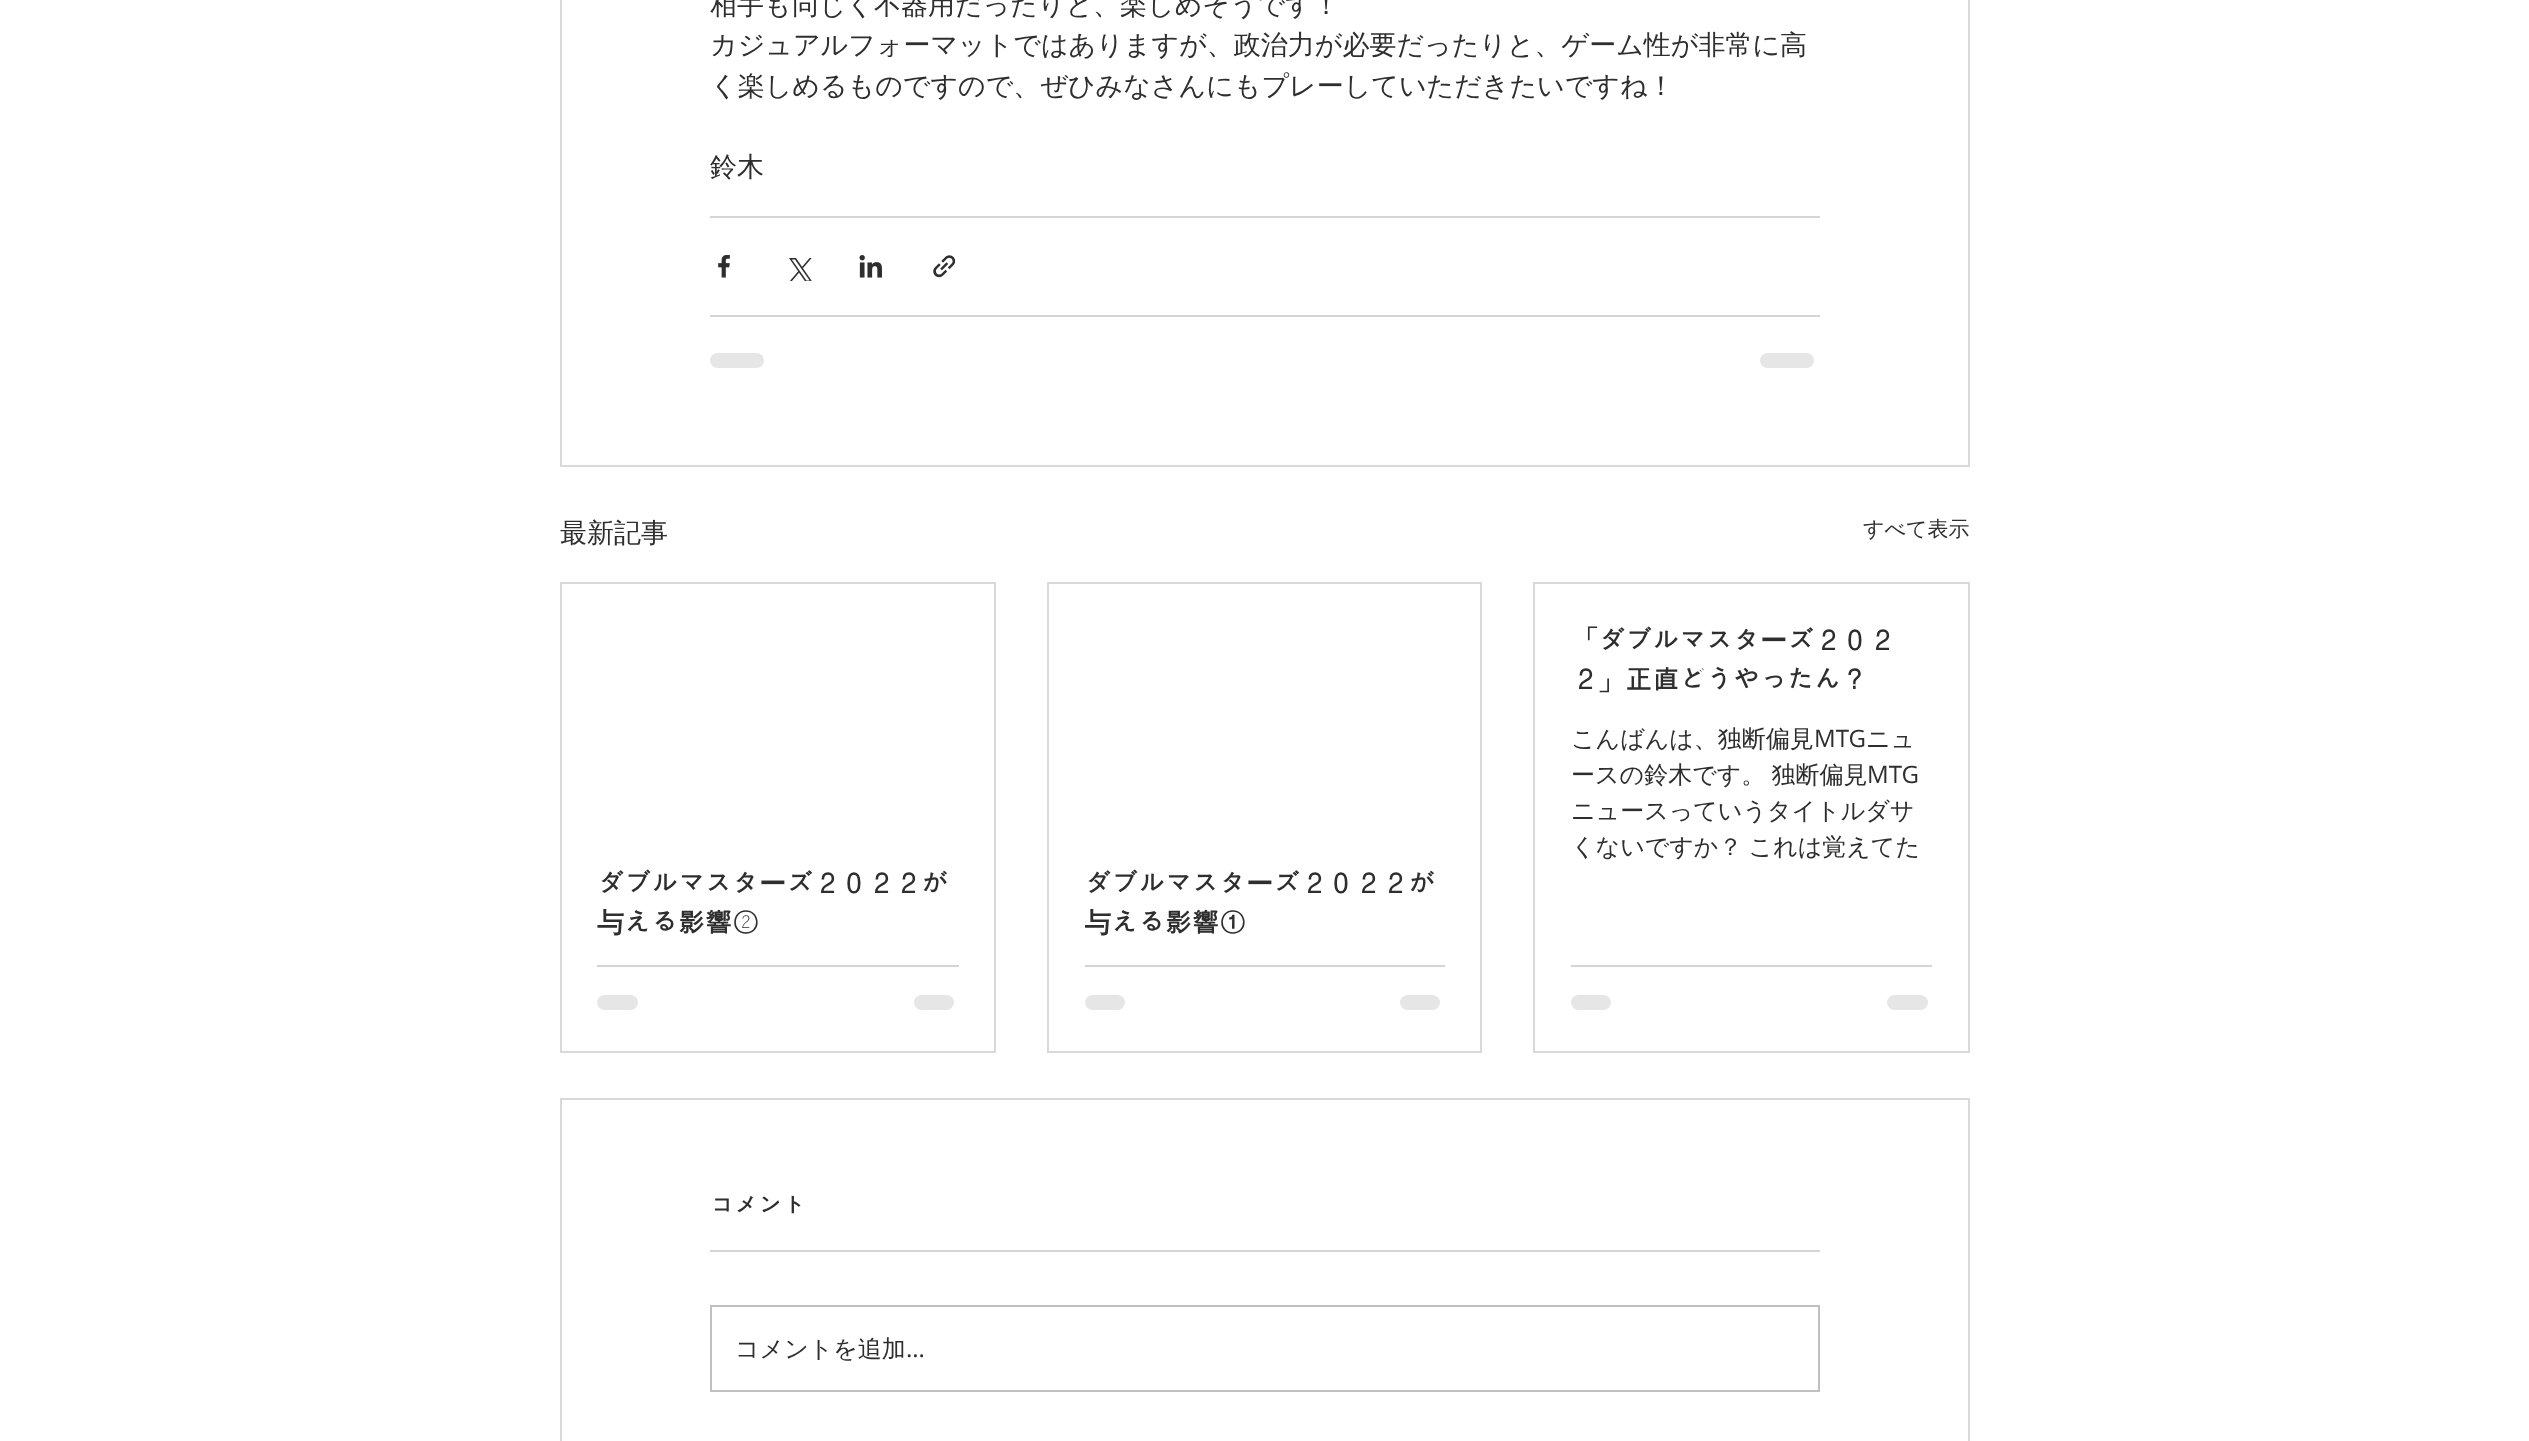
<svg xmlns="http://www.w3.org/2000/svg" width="2529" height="1441">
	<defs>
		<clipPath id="clip1"><rect x="1085" y="863" width="360" height="78" /></clipPath>
	</defs>
	<rect width="100%" height="100%" fill="#FFFFFF" />
	<rect x="561" y="-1" width="1408" height="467" fill="none" stroke="#D9D9D9" stroke-width="2" />
	<g font-family="WenQuanYi Zen Hei" font-size="27" font-weight="500" fill="#2F2E2E">
		<text x="710" y="14">相手も同じく不器用だったりと、楽しめそうです！</text>
		<text x="710" y="54">カジュアルフォーマットではありますが、政治力が必要だったりと、ゲーム性が非常に高</text>
		<text x="710" y="95">く楽しめるものですので、ぜひみなさんにもプレーしていただきたいですね！</text>
		<text x="710" y="176">鈴木</text>
	</g>
	<rect x="710" y="216" width="1110" height="2" fill="#D5D5D5" />
	<image x="718" y="255" width="12" height="23" href="assets/img1.png" />
	<image x="789" y="258" width="23" height="23" href="assets/img2.png" />
	<image x="859" y="255" width="23" height="23" href="assets/img3.png" />
	<image x="933" y="255" width="23" height="23" href="assets/img4.png" />
	<rect x="710" y="315" width="1110" height="2" fill="#D5D5D5" />
	<rect x="710" y="353" width="54" height="15" rx="7.5" fill="#E6E6E6" />
	<rect x="1760" y="353" width="54" height="15" rx="7.5" fill="#E6E6E6" />
	<text x="560" y="542" font-family="WenQuanYi Zen Hei" font-size="27" font-weight="500" fill="#2F2E2E">最新記事</text>
	<text x="1863" y="536" font-family="WenQuanYi Zen Hei" font-size="21" font-weight="500" fill="#2F2E2E">すべて表示</text>
	<rect x="1534" y="583" width="435" height="469" fill="none" stroke="#D9D9D9" stroke-width="2" />
	<text x="1571" y="650" font-family="Dotum" font-size="27" font-weight="700" fill="#2F2E2E">「ダブルマスタ</text>
	<text x="1760" y="650" font-family="WenQuanYi Zen Hei" font-size="27" font-weight="700" fill="#2F2E2E">ー</text>
	<g font-family="Dotum" font-size="27" font-weight="700" fill="#2F2E2E">
		<text x="1787" y="650">ズ２０２</text>
		<text x="1571" y="689">２」正直どうやったん？</text>
	</g>
	<text x="1571" y="747" font-family="WenQuanYi Zen Hei" font-size="24" font-weight="500" fill="#2F2E2E">こんばんは、独断偏見</text>
	<text x="1814" y="747" font-family="Open Sans" font-size="24" fill="#2F2E2E">MTG</text>
	<g font-family="WenQuanYi Zen Hei" font-size="24" font-weight="500" fill="#2F2E2E">
		<text x="1866" y="747">ニュ</text>
		<text x="1571" y="783" word-spacing="-1">ースの鈴木です。 独断偏見</text>
	</g>
	<text x="1867" y="783" font-family="Open Sans" font-size="24" fill="#2F2E2E">MTG</text>
	<g font-family="WenQuanYi Zen Hei" font-size="24" font-weight="500" fill="#2F2E2E">
		<text x="1571" y="819">ニュースっていうタイトルダサ</text>
		<text x="1571" y="855" word-spacing="-1">くないですか？ これは覚えてた</text>
	</g>
	<rect x="1571" y="965" width="361" height="2" fill="#D5D5D5" />
	<rect x="1571" y="995" width="40" height="15" rx="7.5" fill="#E6E6E6" />
	<rect x="1887" y="995" width="41" height="15" rx="7.5" fill="#E6E6E6" />
	<rect x="561" y="583" width="434" height="469" fill="none" stroke="#D9D9D9" stroke-width="2" />
	<text x="597" y="893" font-family="Dotum" font-size="27" font-weight="700" fill="#2F2E2E">ダブルマスタ</text>
	<text x="759" y="893" font-family="WenQuanYi Zen Hei" font-size="27" font-weight="700" fill="#2F2E2E">ー</text>
	<text x="786" y="893" font-family="Dotum" font-size="27" font-weight="700" fill="#2F2E2E">ズ２０２２が</text>
	<text x="597" y="932" font-family="WenQuanYi Zen Hei" font-size="27" font-weight="700" fill="#2F2E2E">与</text>
	<text x="624" y="932" font-family="Dotum" font-size="27" font-weight="700" fill="#2F2E2E">える影響②</text>
	<rect x="597" y="965" width="362" height="2" fill="#D5D5D5" />
	<rect x="597" y="995" width="41" height="15" rx="7.5" fill="#E6E6E6" />
	<rect x="914" y="995" width="40" height="15" rx="7.5" fill="#E6E6E6" />
	<rect x="1048" y="583" width="433" height="469" fill="none" stroke="#D9D9D9" stroke-width="2" />
	<text x="1084" y="893" font-family="Dotum" font-size="27" font-weight="700" fill="#2F2E2E">ダブルマスタ</text>
	<text x="1246" y="893" font-family="WenQuanYi Zen Hei" font-size="27" font-weight="700" fill="#2F2E2E">ー</text>
	<text x="1273" y="893" font-family="Dotum" font-size="27" font-weight="700" fill="#2F2E2E">ズ２０２２が</text>
	<g clip-path="url(#clip1)">
		<text x="1084" y="932" font-family="WenQuanYi Zen Hei" font-size="27" font-weight="700" fill="#2F2E2E">与</text>
	</g>
	<text x="1111" y="932" font-family="Dotum" font-size="27" font-weight="700" fill="#2F2E2E">える影響①</text>
	<rect x="1085" y="965" width="360" height="2" fill="#D5D5D5" />
	<rect x="1085" y="995" width="40" height="15" rx="7.5" fill="#E6E6E6" />
	<rect x="1400" y="995" width="40" height="15" rx="7.5" fill="#E6E6E6" />
	<rect x="561" y="1099" width="1408" height="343" fill="none" stroke="#D9D9D9" stroke-width="2" />
	<text x="710" y="1214" font-family="Dotum" font-size="24" font-weight="700" fill="#2F2E2E">コメント</text>
	<rect x="710" y="1250" width="1110" height="2" fill="#D5D5D5" />
	<rect x="711" y="1306" width="1108" height="85" fill="none" stroke="#C1C0C0" stroke-width="2" />
	<text x="735" y="1357" font-family="WenQuanYi Zen Hei" font-size="24" font-weight="500" fill="#2F2E2E">コメントを追加</text>
	<text x="906" y="1357" font-family="Open Sans" font-size="24" fill="#2F2E2E">…</text>
</svg>
